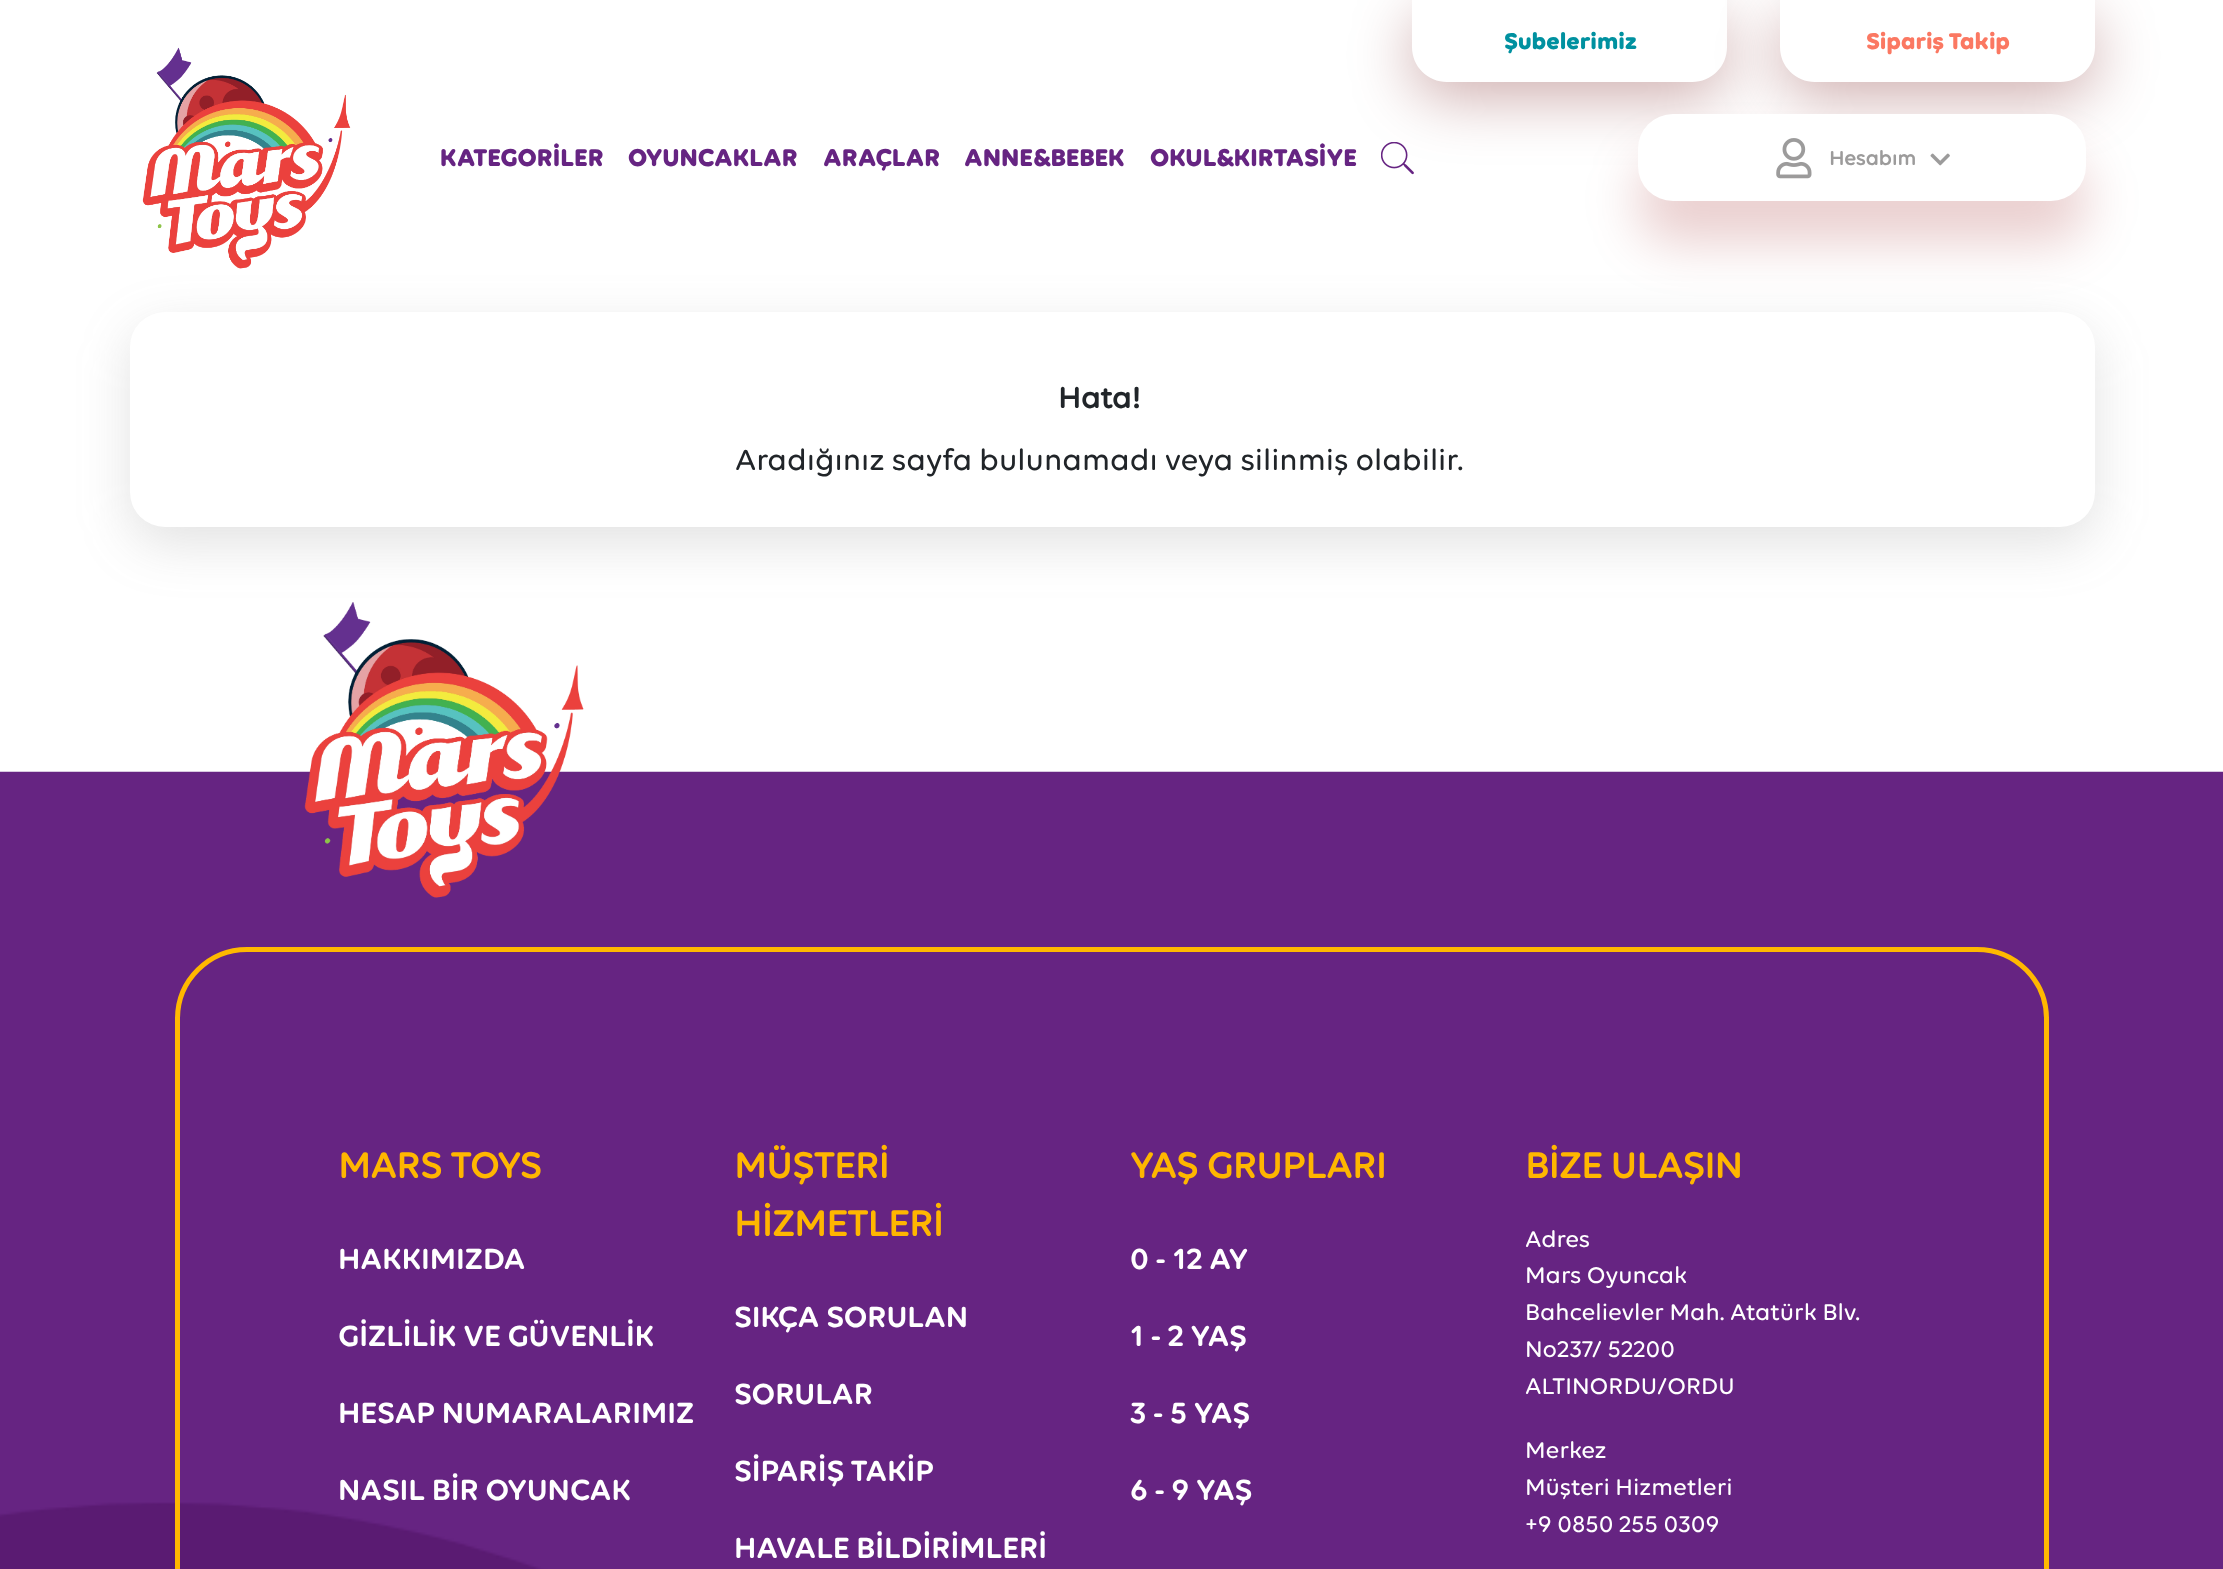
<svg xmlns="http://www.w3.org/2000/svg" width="2223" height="1569">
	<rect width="100%" height="100%" fill="#FFFFFF" />
	<rect x="1412" y="14" width="315" height="82" rx="35" fill="#670000" fill-opacity="0.33" filter="blur(31.5px)" />
	<path d="M1412 0H1727V47C1727 66.5 1711.5 82 1692 82H1447C1427.5 82 1412 66.5 1412 47Z" fill="#FFFFFF" />
	<text x="1504" y="49" font-family="'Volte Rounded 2'" font-size="24.5" font-weight="700" fill="#0091A0">Şubelerimiz</text>
	<rect x="1780" y="14" width="315" height="82" rx="35" fill="#670000" fill-opacity="0.33" filter="blur(31.5px)" />
	<path d="M1780 0H2095V47C2095 66.5 2079.5 82 2060 82H1815C1795.5 82 1780 66.5 1780 47Z" fill="#FFFFFF" />
	<text x="1866" y="49" font-family="'Volte Rounded 2'" font-size="24.5" font-weight="700" fill="#FB7862">Sipariş Takip</text>
	<rect x="130" y="329" width="1965" height="215" rx="35" fill="#6F6F6F" fill-opacity="0.2" filter="blur(26px)" />
	<image x="142" y="47" width="209" height="222" href="assets/img1.png" />
	<g font-family="'Volte Rounded 2'" font-size="26.25" font-weight="700" fill="#662482">
		<text x="440" y="166">KATEGORİLER</text>
		<text x="628" y="166">OYUNCAKLAR</text>
		<text x="823" y="166">ARAÇLAR</text>
		<text x="964" y="166">ANNE&amp;BEBEK</text>
		<text x="1150" y="166">OKUL&amp;KIRTASİYE</text>
	</g>
	<image x="1381" y="142" width="33" height="33" href="assets/img2.png" />
	<rect x="130" y="312" width="1965" height="215" rx="35" fill="#FFFFFF" />
	<rect x="1638" y="156" width="448" height="87" rx="35" fill="#8E0000" fill-opacity="0.19" filter="blur(26px)" />
	<rect x="1638" y="114" width="448" height="87" rx="35" fill="#FFFFFF" />
	<image x="1776" y="138" width="36" height="41" href="assets/img3.png" />
	<text x="1829" y="165" font-family="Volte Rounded" font-size="21" font-weight="700" fill="#9C9B9B">Hesabım</text>
	<image x="1930" y="153" width="20" height="13" href="assets/img4.png" />
	<text x="1058" y="408" font-family="Volte Rounded" font-size="31.5" font-weight="700" fill="#212529">Hata!</text>
	<text x="735" y="470" font-family="Volte Rounded" font-size="31.5" font-weight="500" fill="#212529">Aradığınız sayfa bulunamadı veya silinmiş olabilir.</text>
	<image x="0" y="771" width="2223" height="798" href="assets/img5.png" />
	<image x="304" y="602" width="280" height="296" href="assets/img6.png" />
	<rect x="177.5" y="949.5" width="1869" height="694" rx="69.5" fill="none" stroke="#FFB800" stroke-width="5" />
	<text x="338" y="1178" font-family="Volte Rounded" font-size="38.5" font-weight="700" fill="#FFB600">MARS TOYS</text>
	<g font-family="Volte Rounded" font-size="31.5" font-weight="600" fill="#FFFFFF">
		<text x="338" y="1269">HAKKIMIZDA</text>
		<text x="338" y="1346">GİZLİLİK VE GÜVENLİK</text>
		<text x="338" y="1423">HESAP NUMARALARIMIZ</text>
		<text x="338" y="1500">NASIL BİR OYUNCAK</text>
	</g>
	<g font-family="Volte Rounded" font-size="38.5" font-weight="700" fill="#FFB600">
		<text x="734" y="1178">MÜŞTERİ</text>
		<text x="734" y="1236">HİZMETLERİ</text>
	</g>
	<g font-family="Volte Rounded" font-size="31.5" font-weight="600" fill="#FFFFFF">
		<text x="734" y="1327">SIKÇA SORULAN</text>
		<text x="734" y="1404">SORULAR</text>
		<text x="734" y="1481">SİPARİŞ TAKİP</text>
		<text x="734" y="1558">HAVALE BİLDİRİMLERİ</text>
	</g>
	<text x="1130" y="1178" font-family="Volte Rounded" font-size="38.5" font-weight="700" fill="#FFB600">YAŞ GRUPLARI</text>
	<g font-family="Volte Rounded" font-size="31.5" font-weight="600" fill="#FFFFFF">
		<text x="1130" y="1269">0 - 12 AY</text>
		<text x="1130" y="1346">1 - 2 YAŞ</text>
		<text x="1130" y="1423">3 - 5 YAŞ</text>
		<text x="1130" y="1500">6 - 9 YAŞ</text>
	</g>
	<text x="1525" y="1178" font-family="Volte Rounded" font-size="38.5" font-weight="700" fill="#FFB600">BİZE ULAŞIN</text>
	<g font-family="Volte Rounded" font-size="24.5" font-weight="500" fill="#FFFFFF">
		<text x="1525" y="1247">Adres</text>
		<text x="1525" y="1283">Mars Oyuncak</text>
		<text x="1525" y="1320">Bahcelievler Mah. Atatürk Blv.</text>
		<text x="1525" y="1357">No237/ 52200</text>
		<text x="1525" y="1394">ALTINORDU/ORDU</text>
		<text x="1525" y="1458">Merkez</text>
		<text x="1525" y="1495">Müşteri Hizmetleri</text>
		<text x="1525" y="1532">+9 0850 255 0309</text>
	</g>
</svg>
